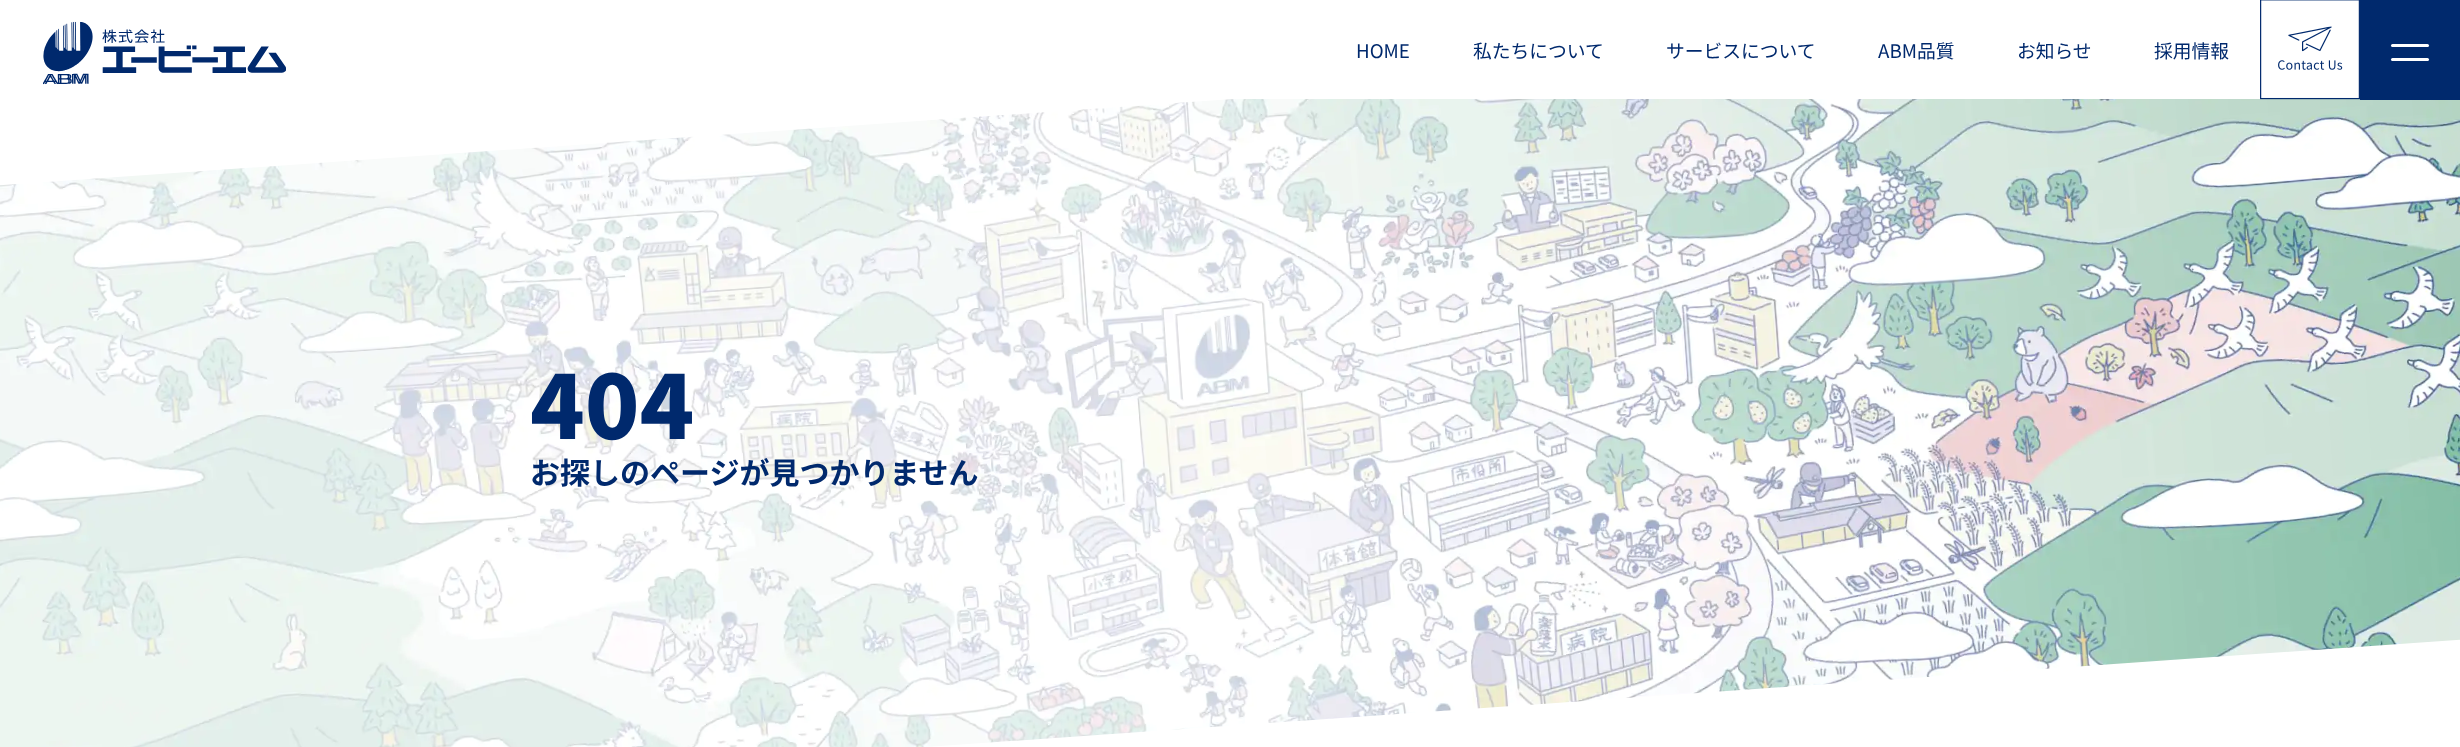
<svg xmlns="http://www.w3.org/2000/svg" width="2460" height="747">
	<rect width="100%" height="100%" fill="#FFFFFF" />
	<image x="43" y="21" width="243" height="64" href="assets/img1.png" />
	<g font-family="Noto Sans JP" font-size="18.75" fill="#00296D">
		<text x="1356" y="58">HOME</text>
		<text x="1473" y="58">私たちについて</text>
		<text x="1666" y="58">サービスについて</text>
		<text x="1878" y="58">ABM品質</text>
		<text x="2017" y="58">お知らせ</text>
		<text x="2154" y="58">採用情報</text>
	</g>
	<image x="0" y="99" width="2460" height="648" href="assets/img3.png" />
	<image x="2260" y="0" width="100" height="100" href="assets/img2.png" />
	<rect x="2360" y="0" width="100" height="100" fill="#00296D" />
	<rect x="2391" y="44" width="38" height="3" rx="1.5" fill="#FFFFFF" />
	<rect x="2391" y="58" width="38" height="3" rx="1.5" fill="#FFFFFF" />
	<text x="530" y="439" font-family="Noto Sans JP" font-size="90" font-weight="900" fill="#00296D">404</text>
	<text x="530" y="484" font-family="Noto Sans JP" font-size="30" font-weight="700" fill="#00296D">お探しのページが見つかりません</text>
</svg>
